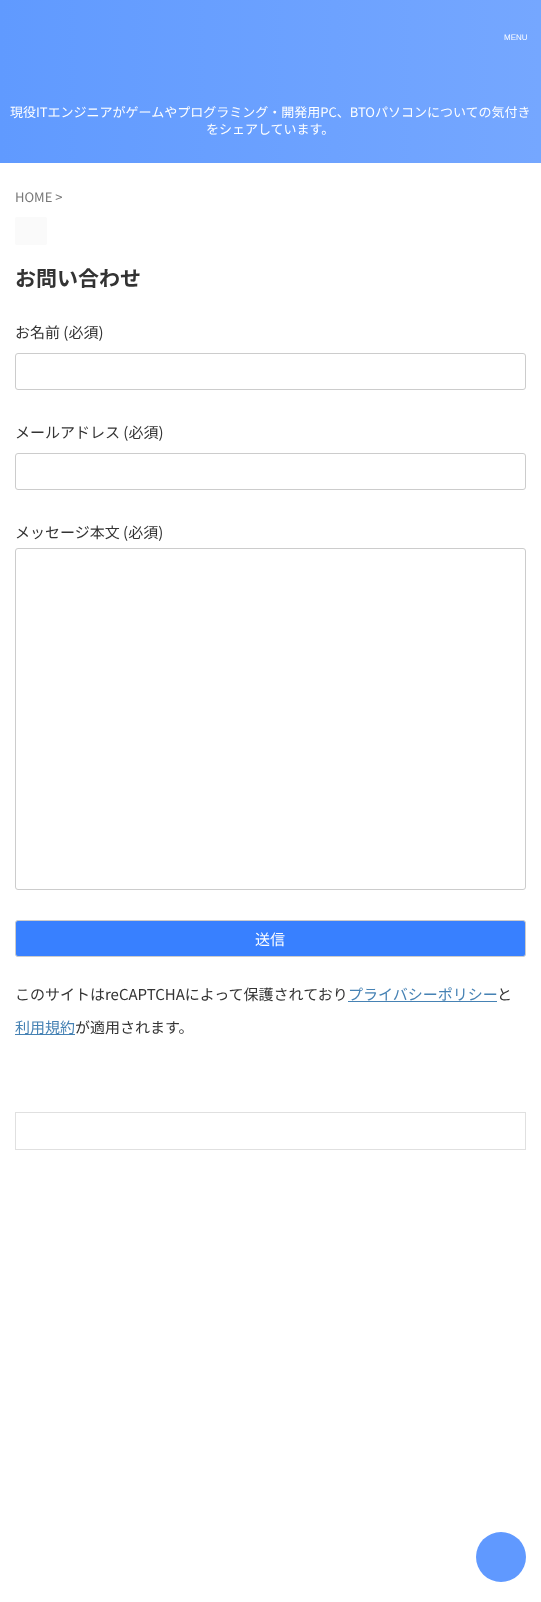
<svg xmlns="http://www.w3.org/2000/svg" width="541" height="1602">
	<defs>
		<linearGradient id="g1" gradientUnits="userSpaceOnUse" x1="541" y1="82" x2="0" y2="81"><stop offset="0" stop-color="#75A7FF" /><stop offset="1" stop-color="#609AFF" /></linearGradient>
	</defs>
	<rect width="100%" height="100%" fill="#FFFFFF" />
	<rect x="0" y="0" width="541" height="163" fill="url(#g1)" />
	<text x="504" y="40" font-family="Liberation Sans" font-size="8" fill="#FFFFFF">MENU</text>
	<g font-family="Noto Sans JP" font-size="13" fill="#FFFFFF">
		<text x="10" y="117">現役ITエンジニアがゲームやプログラミング・開発用PC、BTOパソコンについての気付き</text>
		<text x="206" y="134">をシェアしています。</text>
	</g>
	<text x="15" y="202" font-family="Noto Sans JP" font-size="13" fill="#777777">HOME &gt;</text>
	<rect x="15" y="217" width="32" height="28" rx="2" fill="#FAFAFA" />
	<text x="15" y="286" font-family="Noto Sans JP" font-size="21" font-weight="700" fill="#333333">お問い合わせ</text>
	<text x="15" y="338" font-family="Noto Sans JP" font-size="15" fill="#333333">お名前 (必須)</text>
	<rect x="15.5" y="353.5" width="510" height="36" rx="2.5" fill="none" stroke="#CCCCCC" />
	<text x="15" y="438" font-family="Noto Sans JP" font-size="15" fill="#333333">メールアドレス (必須)</text>
	<rect x="15.5" y="453.5" width="510" height="36" rx="2.5" fill="none" stroke="#CCCCCC" />
	<text x="15" y="538" font-family="Noto Sans JP" font-size="15" fill="#333333">メッセージ本文 (必須)</text>
	<rect x="15.5" y="548.5" width="510" height="341" rx="2.5" fill="none" stroke="#CCCCCC" />
	<rect x="15.5" y="920.5" width="510" height="36" rx="2.5" fill="#3880FF" stroke="#CCCCCC" />
	<text x="255" y="945" font-family="Noto Sans JP" font-size="15" fill="#FFFFFF">送信</text>
	<text x="15" y="1000" font-family="Noto Sans JP" font-size="15" fill="#333333">このサイトはreCAPTCHAによって保護されており</text>
	<text x="348" y="1000" font-family="Noto Sans JP" font-size="15" fill="#4682B4">プライバシーポリシー</text>
	<rect x="348" y="1001" width="149" height="1" fill="#4682B4" />
	<text x="497" y="1000" font-family="Noto Sans JP" font-size="15" fill="#333333">と</text>
	<rect x="15" y="1034" width="60" height="1" fill="#4682B4" />
	<text x="15" y="1033" font-family="Noto Sans JP" font-size="15" fill="#4682B4">利用規約</text>
	<text x="75" y="1033" font-family="Noto Sans JP" font-size="15" fill="#333333">が適用されます。</text>
	<rect x="15.5" y="1112.5" width="510" height="37" fill="none" stroke="#E0E0E0" />
	<circle cx="501" cy="1557" r="25" fill="#6099FF" />
</svg>
